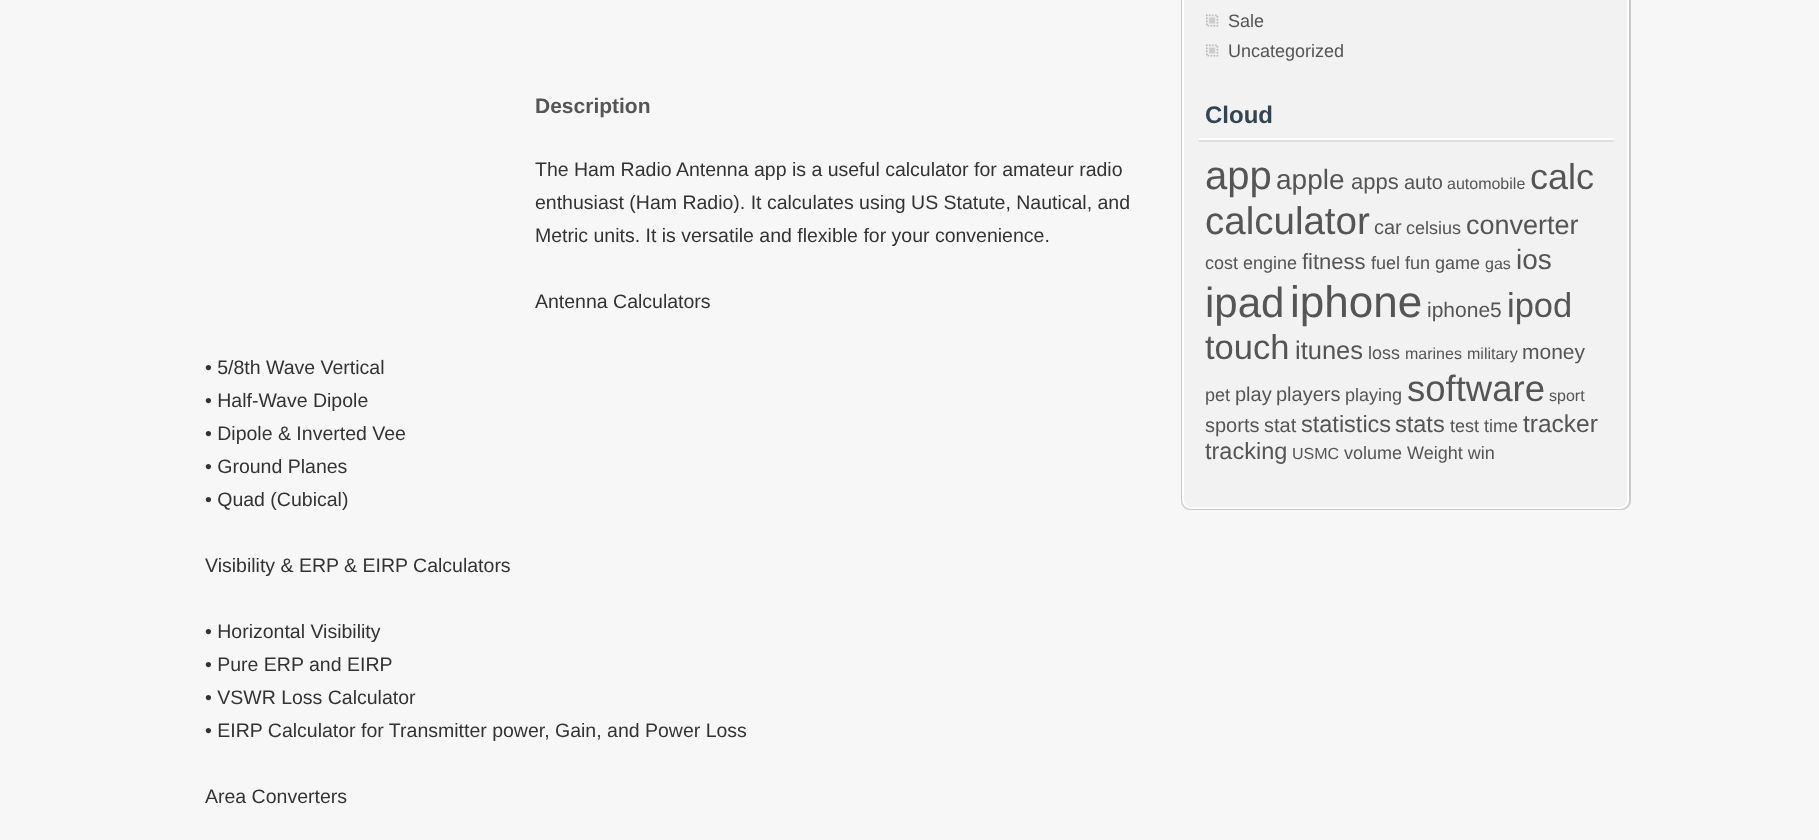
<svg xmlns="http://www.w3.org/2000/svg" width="1819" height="840">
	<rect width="100%" height="100%" fill="#F7F7F7" />
	<text x="535" y="113" font-family="Liberation Sans" font-size="21" font-weight="700" fill="#555555">Description</text>
	<g font-family="Liberation Sans" font-size="19.5" fill="#333333">
		<text x="535" y="176">The Ham Radio Antenna app is a useful calculator for amateur radio</text>
		<text x="535" y="209">enthusiast (Ham Radio). It calculates using US Statute, Nautical, and</text>
		<text x="535" y="242">Metric units. It is versatile and flexible for your convenience.</text>
		<text x="535" y="308">Antenna Calculators</text>
		<text x="205" y="374">• 5/8th Wave Vertical</text>
		<text x="205" y="407">• Half-Wave Dipole</text>
		<text x="205" y="440">• Dipole &amp; Inverted Vee</text>
		<text x="205" y="473">• Ground Planes</text>
		<text x="205" y="506">• Quad (Cubical)</text>
		<text x="205" y="572">Visibility &amp; ERP &amp; EIRP Calculators</text>
		<text x="205" y="638">• Horizontal Visibility</text>
		<text x="205" y="671">• Pure ERP and EIRP</text>
		<text x="205" y="704">• VSWR Loss Calculator</text>
		<text x="205" y="737">• EIRP Calculator for Transmitter power, Gain, and Power Loss</text>
		<text x="205" y="803">Area Converters</text>
	</g>
	<rect x="1182" y="-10" width="448" height="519" rx="8" fill="#F2F2F2" stroke="#CCCCCC" stroke-width="2" />
	<rect x="1183" y="-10" width="445" height="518" rx="8" fill="none" stroke="#FFFFFF" stroke-width="2" />
	<image x="1206" y="14" width="13" height="13" href="assets/img1.png" />
	<text x="1228" y="27" font-family="Liberation Sans" font-size="18" fill="#555555">Sale</text>
	<image x="1206" y="44" width="13" height="13" href="assets/img1.png" />
	<text x="1228" y="57" font-family="Liberation Sans" font-size="18" fill="#555555">Uncategorized</text>
	<rect x="1199" y="138" width="414" height="2" fill="#FFFFFF" />
	<text x="1205" y="123" font-family="Liberation Sans" font-size="24" font-weight="700" fill="#334455">Cloud</text>
	<rect x="1199" y="140" width="414" height="2" fill="#DDDDDD" />
	<text x="1205" y="189" font-family="Liberation Sans" font-size="40" fill="#555555">app</text>
	<text x="1276" y="189" font-family="Liberation Sans" font-size="28" fill="#555555">apple</text>
	<text x="1351" y="189" font-family="Liberation Sans" font-size="22" fill="#555555">apps</text>
	<text x="1404" y="189" font-family="Liberation Sans" font-size="20" fill="#555555">auto</text>
	<text x="1447" y="189" font-family="Liberation Sans" font-size="16" fill="#555555">automobile</text>
	<text x="1530" y="189" font-family="Liberation Sans" font-size="36" fill="#555555">calc</text>
	<text x="1205" y="234" font-family="Liberation Sans" font-size="38.5" fill="#555555">calculator</text>
	<text x="1374" y="234" font-family="Liberation Sans" font-size="20" fill="#555555">car</text>
	<text x="1406" y="234" font-family="Liberation Sans" font-size="18" fill="#555555">celsius</text>
	<text x="1466" y="234" font-family="Liberation Sans" font-size="27" fill="#555555">converter</text>
	<text x="1205" y="269" font-family="Liberation Sans" font-size="18" fill="#555555">cost engine</text>
	<text x="1302" y="269" font-family="Liberation Sans" font-size="22" fill="#555555">fitness</text>
	<text x="1371" y="269" font-family="Liberation Sans" font-size="18" fill="#555555">fuel fun game</text>
	<text x="1485" y="269" font-family="Liberation Sans" font-size="16" fill="#555555">gas</text>
	<text x="1516" y="269" font-family="Liberation Sans" font-size="28" fill="#555555">ios</text>
	<text x="1205" y="317" font-family="Liberation Sans" font-size="42" fill="#555555">ipad</text>
	<text x="1290" y="317" font-family="Liberation Sans" font-size="44" fill="#555555">iphone</text>
	<text x="1427" y="317" font-family="Liberation Sans" font-size="21" fill="#555555">iphone5</text>
	<g font-family="Liberation Sans" font-size="34.5" fill="#555555">
		<text x="1507" y="317">ipod</text>
		<text x="1205" y="359">touch</text>
	</g>
	<text x="1295" y="359" font-family="Liberation Sans" font-size="25.5" fill="#555555">itunes</text>
	<text x="1368" y="359" font-family="Liberation Sans" font-size="18" fill="#555555">loss</text>
	<g font-family="Liberation Sans" font-size="16" fill="#555555">
		<text x="1405" y="359">marines</text>
		<text x="1467" y="359">military</text>
	</g>
	<text x="1522" y="359" font-family="Liberation Sans" font-size="21" fill="#555555">money</text>
	<text x="1205" y="401" font-family="Liberation Sans" font-size="18" fill="#555555">pet</text>
	<g font-family="Liberation Sans" font-size="20" fill="#555555">
		<text x="1235" y="401">play</text>
		<text x="1276" y="401">players</text>
	</g>
	<text x="1345" y="401" font-family="Liberation Sans" font-size="18" fill="#555555">playing</text>
	<text x="1407" y="401" font-family="Liberation Sans" font-size="36.5" fill="#555555">software</text>
	<text x="1549" y="401" font-family="Liberation Sans" font-size="16" fill="#555555">sport</text>
	<g font-family="Liberation Sans" font-size="20" fill="#555555">
		<text x="1205" y="432">sports</text>
		<text x="1264" y="432">stat</text>
	</g>
	<g font-family="Liberation Sans" font-size="23.5" fill="#555555">
		<text x="1301" y="432">statistics</text>
		<text x="1395" y="432">stats</text>
	</g>
	<text x="1450" y="432" font-family="Liberation Sans" font-size="18" fill="#555555">test time</text>
	<text x="1523" y="432" font-family="Liberation Sans" font-size="24.5" fill="#555555">tracker</text>
	<text x="1205" y="459" font-family="Liberation Sans" font-size="23.5" fill="#555555">tracking</text>
	<text x="1292" y="459" font-family="Liberation Sans" font-size="16" fill="#555555">USMC</text>
	<text x="1344" y="459" font-family="Liberation Sans" font-size="18" fill="#555555">volume Weight win</text>
</svg>
